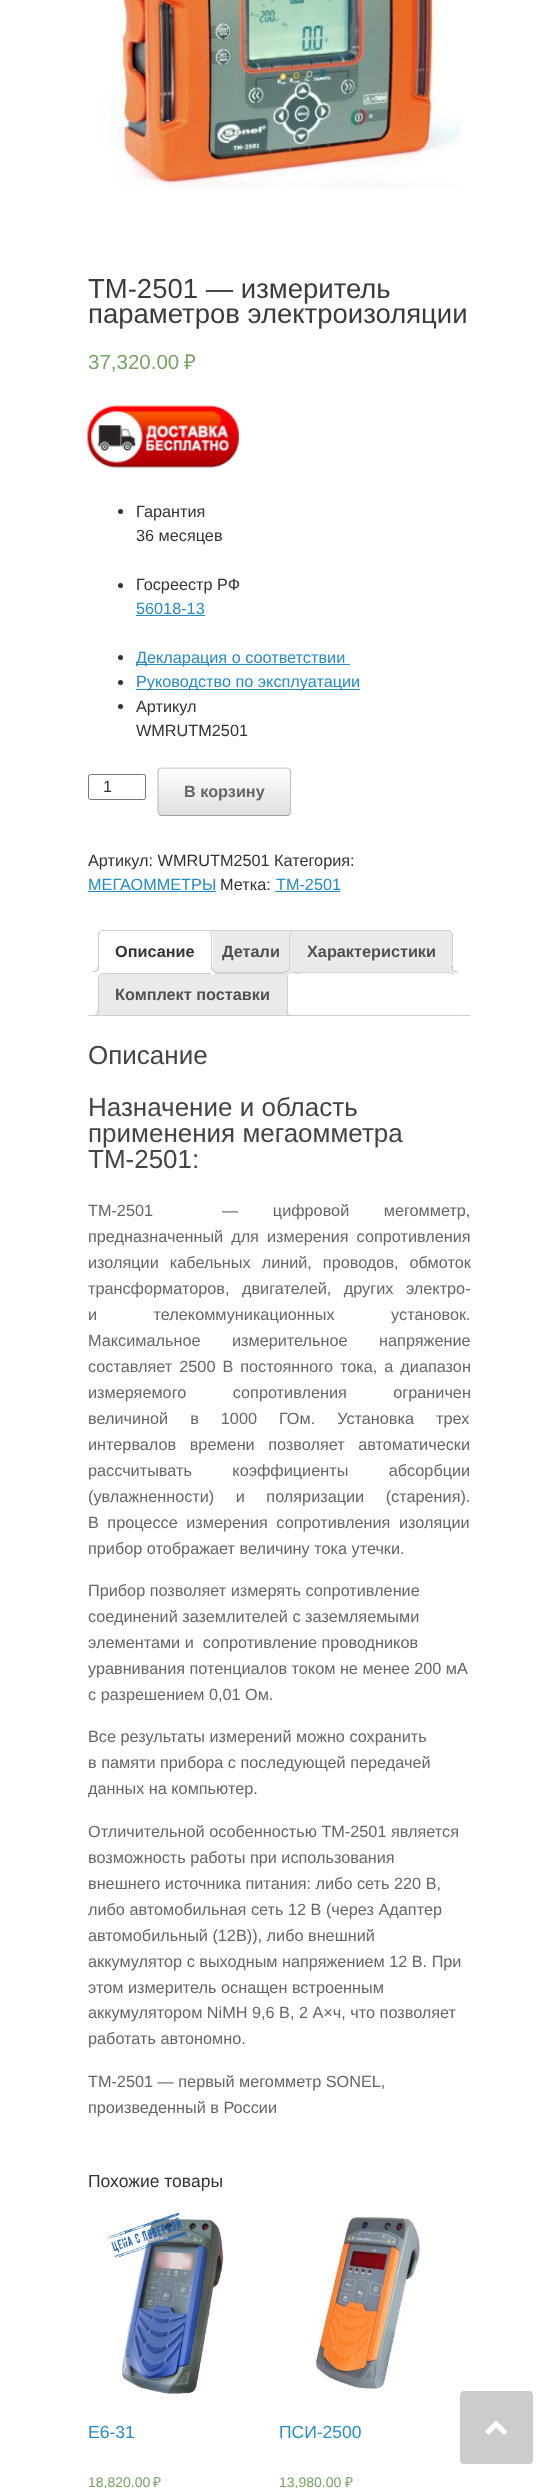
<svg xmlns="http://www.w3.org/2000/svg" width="557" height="2488">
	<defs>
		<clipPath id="clip1"><rect x="158" y="768" width="133" height="48" rx="4" /></clipPath>
		<linearGradient id="g1" gradientUnits="userSpaceOnUse" x1="159" y1="769" x2="159" y2="723"><stop offset="0" stop-color="#DFDFDF" /><stop offset="1" stop-color="#FFFFFF" /></linearGradient>
		<linearGradient id="g2" gradientUnits="userSpaceOnUse" x1="159" y1="815" x2="159" y2="769"><stop offset="0" stop-color="#DFDFDF" /><stop offset="1" stop-color="#FFFFFF" /></linearGradient>
		<clipPath id="clip2"><rect x="88" y="930" width="382" height="86" /></clipPath>
	</defs>
	<rect width="100%" height="100%" fill="#FFFFFF" />
	<image x="109" y="0" width="354" height="189" href="assets/img1.png" />
	<g font-family="Liberation Sans" font-size="27.5" fill="#3B3B3B">
		<text x="88" y="298">TM-2501 — измеритель</text>
		<text x="88" y="323">параметров электроизоляции</text>
	</g>
	<text x="88" y="369" font-family="Liberation Sans" font-size="20.5" fill="#77A464">37,320.00</text>
	<text x="184" y="369" font-family="Noto Sans" font-size="20.5" fill="#77A464">₽</text>
	<image x="87" y="405" width="152" height="63" href="assets/img2.png" />
	<circle cx="120.5" cy="511.5" r="2.5" fill="#333333" />
	<g font-family="Liberation Sans" font-size="16.25" fill="#333333">
		<text x="136" y="517">Гарантия</text>
		<text x="136" y="541">36 месяцев</text>
	</g>
	<circle cx="120.5" cy="585.5" r="2.5" fill="#333333" />
	<text x="136" y="590" font-family="Liberation Sans" font-size="16.25" fill="#333333">Госреестр РФ</text>
	<text x="136" y="614" font-family="Liberation Sans" font-size="16.25" fill="#248CC8">56018-13</text>
	<rect x="136" y="615" width="69" height="1" fill="#248CC8" />
	<circle cx="120.5" cy="657.5" r="2.5" fill="#333333" />
	<rect x="136" y="664" width="214" height="1" fill="#248CC8" />
	<text x="136" y="663" font-family="Liberation Sans" font-size="16.25" fill="#248CC8">Декларация о соответствии</text>
	<circle cx="120.5" cy="682.5" r="2.5" fill="#333333" />
	<rect x="136" y="689" width="224" height="1" fill="#248CC8" />
	<text x="136" y="687" font-family="Liberation Sans" font-size="16.25" fill="#248CC8">Руководство по эксплуатации</text>
	<circle cx="120.5" cy="706.5" r="2.5" fill="#333333" />
	<g font-family="Liberation Sans" font-size="16.25" fill="#333333">
		<text x="136" y="712">Артикул</text>
		<text x="136" y="736">WMRUTM2501</text>
	</g>
	<rect x="88.5" y="774.5" width="57" height="25" rx="2" fill="none" stroke="#767676" />
	<text x="103" y="792" font-family="Liberation Sans" font-size="16.25" fill="#333333">1</text>
	<g clip-path="url(#clip1)">
		<rect x="158" y="768" width="133" height="1" fill="url(#g1)" />
		<rect x="158" y="769" width="133" height="46" fill="url(#g2)" />
	</g>
	<path d="M159 769L161 768H287.5L289.5 769" fill="none" stroke="#D2D2D2" stroke-width="1.2" />
	<path d="M289.5 769L290.5 771V812.5L289.5 814.5" fill="none" stroke="#C3C3C3" stroke-width="1.2" />
	<path d="M289.5 814.5L287.5 815.5H161L159 814.5" fill="none" stroke="#9F9F9F" stroke-width="1.2" />
	<path d="M159 814.5L158 812.5V771L159 769" fill="none" stroke="#C3C3C3" stroke-width="1.2" />
	<text x="184" y="797" font-family="Liberation Sans" font-size="16.25" font-weight="700" fill="#666666">В корзину</text>
	<text x="88" y="866" font-family="Liberation Sans" font-size="16.25" fill="#333333">Артикул: WMRUTM2501 Категория:</text>
	<text x="88" y="890" font-family="Liberation Sans" font-size="16.25" fill="#248CC8">МЕГАОММЕТРЫ</text>
	<rect x="88" y="891" width="128" height="1" fill="#248CC8" />
	<text x="220" y="890" font-family="Liberation Sans" font-size="16.25" fill="#333333">Метка:</text>
	<text x="276" y="890" font-family="Liberation Sans" font-size="16.25" fill="#248CC8">TM-2501</text>
	<rect x="275" y="891" width="65" height="1" fill="#248CC8" />
	<rect x="208" y="930" width="86" height="42" fill="#EBE9EB" />
	<rect x="204.5" y="930.5" width="93" height="42" fill="none" stroke="#D3CED2" />
	<path d="M103 930H208C211 930 213 932 213 935V973H98V935C98 932 100 930 103 930Z" fill="#FFFFFF" />
	<path d="M102 930C101 930 100 931 99 932H100L101 931H208L210 932H211C210 931 209 930 208 930Z" fill="#D3CED2" />
	<path d="M211 932C212 932 212 934 212 935V972L211 971V935L210 932Z" fill="#D3CED2" />
	<path d="M212 972L211 971H99L98 972Z" fill="#FFFFFF" />
	<path d="M99 932C98 932 98 934 98 935V972L99 971V935L100 932Z" fill="#D3CED2" />
	<text x="115" y="957" font-family="Liberation Sans" font-size="16.25" font-weight="700" fill="#333333">Описание</text>
	<path d="M294 969C294 973 296 975 300 975V972.5C298.5 972 297 970.5 296.5 969Z" fill="#EBE9EB" />
	<path d="M294 930.5H448C450.5 930.5 452.5 932.5 452.5 935V972.5H289.5V935C289.5 932.5 291.5 930.5 294 930.5Z" fill="#EBE9EB" stroke="#D3CED2" />
	<path d="M286 972.5V975C290.5 975 293 974 293 969H290C289 970.5 288 972 286 972.5Z" fill="#EBE9EB" />
	<path d="M103 973.5H283C285.5 973.5 287.5 975.5 287.5 978V1015.5H98.5V978C98.5 975.5 100.5 973.5 103 973.5Z" fill="#EBE9EB" stroke="#D3CED2" />
	<path d="M95 972.5V975C99 975 101 973 101 969H98.5C98 970.5 96.5 972 95 972.5Z" fill="#FFFFFF" />
	<path d="M92.5 966H99C99 970.5 97 972.5 92.5 972.5ZM92.5 966H97.5C97.5 970 96 971 92.5 971Z" fill="#D3CED2" fill-rule="evenodd" />
	<path d="M209 969C209 973 211 975 215 975V972.5C213.5 972 212 970.5 211.5 969Z" fill="#FFFFFF" />
	<path d="M211 966H217.5V972.5C214.5 972.5 211 971 211 967.5ZM212.5 966H217.5V971C215 971 212.5 970.5 212.5 967.5Z" fill="#D3CED2" fill-rule="evenodd" />
	<g font-family="Liberation Sans" font-size="16.25" font-weight="700" fill="#515151">
		<text x="222" y="957">Детали</text>
		<text x="307" y="957">Характеристики</text>
	</g>
	<path d="M284 966H290C290 970.5 288 972.5 284 972.5ZM284 966H289C289 970 287.5 971 284 971Z" fill="#D3CED2" fill-rule="evenodd" />
	<path d="M449 969C449 973 451 975 455 975V972.5C453.5 972 452 970.5 451.5 969Z" fill="#EBE9EB" />
	<path d="M451 966H457.5V972.5C454.5 972.5 451 971 451 967.5ZM452.5 966H457.5V971C455 971 452.5 970.5 452.5 967.5Z" fill="#D3CED2" fill-rule="evenodd" />
	<text x="115" y="1000" font-family="Liberation Sans" font-size="16.25" font-weight="700" fill="#515151">Комплект поставки</text>
	<g clip-path="url(#clip2)">
		<path d="M95 1016V1019C99 1019 101 1017 101 1013H98.5C98 1014.5 96.5 1015.5 95 1016Z" fill="#EBE9EB" />
	</g>
	<path d="M92.5 1010H99C99 1014.5 97 1016 92.5 1016ZM92.5 1010H97.5C97.5 1013.5 96 1015 92.5 1015Z" fill="#D3CED2" fill-rule="evenodd" />
	<g clip-path="url(#clip2)">
		<path d="M284 1013C284 1017 286 1019 290 1019V1016C288.5 1015.5 287 1014.5 286.5 1013Z" fill="#EBE9EB" />
	</g>
	<path d="M286 1010H292.5V1016C289.5 1016 286 1015 286 1011ZM287.5 1010H292.5V1015C290 1015 287.5 1014 287.5 1011Z" fill="#D3CED2" fill-rule="evenodd" />
	<rect x="88" y="1015" width="382" height="1" fill="#D3CED2" />
	<g font-family="Liberation Sans" font-size="26" fill="#444444">
		<text x="88" y="1064">Описание</text>
		<text x="88" y="1116">Назначение и область</text>
		<text x="88" y="1142">применения мегаомметра</text>
		<text x="88" y="1168">ТМ-2501:</text>
	</g>
	<g font-family="Liberation Sans" font-size="16.25" fill="#666666">
		<text x="88" y="1216" word-spacing="30" xml:space="preserve">TM-2501  — цифровой мегомметр,</text>
		<text x="88" y="1242" word-spacing="3.5">предназначенный для измерения сопротивления</text>
		<text x="88" y="1268" word-spacing="6.5">изоляции кабельных линий, проводов, обмоток</text>
		<text x="88" y="1294" word-spacing="8">трансформаторов, двигателей, других электро-</text>
		<text x="88" y="1320" word-spacing="52">и телекоммуникационных установок.</text>
		<text x="88" y="1346" word-spacing="27">Максимальное измерительное напряжение</text>
		<text x="88" y="1372" word-spacing="2.5">составляет 2500 В постоянного тока, а диапазон</text>
		<text x="88" y="1398" word-spacing="42">измеряемого сопротивления ограничен</text>
		<text x="88" y="1424" word-spacing="17.5">величиной в 1000 ГОм. Установка трех</text>
		<text x="88" y="1450" word-spacing="9">интервалов времени позволяет автоматически</text>
		<text x="88" y="1476" word-spacing="36">рассчитывать коэффициенты абсорбции</text>
		<text x="88" y="1502" word-spacing="17">(увлажненности) и поляризации (старения).</text>
		<text x="88" y="1528" word-spacing="4">В процессе измерения сопротивления изоляции</text>
		<text x="88" y="1554">прибор отображает величину тока утечки.</text>
		<text x="88" y="1596">Прибор позволяет измерять сопротивление</text>
		<text x="88" y="1622">соединений заземлителей с заземляемыми</text>
		<text x="88" y="1648" xml:space="preserve">элементами и  сопротивление проводников</text>
		<text x="88" y="1674">уравнивания потенциалов током не менее 200 мА</text>
		<text x="88" y="1700">с разрешением 0,01 Ом.</text>
		<text x="88" y="1742">Все результаты измерений можно сохранить</text>
		<text x="88" y="1768">в памяти прибора с последующей передачей</text>
		<text x="88" y="1794">данных на компьютер.</text>
		<text x="88" y="1837">Отличительной особенностью TM-2501 является</text>
		<text x="88" y="1863">возможность работы при использования</text>
		<text x="88" y="1889">внешнего источника питания: либо сеть 220 В,</text>
		<text x="88" y="1915">либо автомобильная сеть 12 В (через Адаптер</text>
		<text x="88" y="1941">автомобильный (12В)), либо внешний</text>
		<text x="88" y="1967">аккумулятор с выходным напряжением 12 В. При</text>
		<text x="88" y="1993">этом измеритель оснащен встроенным</text>
		<text x="88" y="2018">аккумулятором NiMH 9,6 В, 2 А×ч, что позволяет</text>
		<text x="88" y="2044">работать автономно.</text>
		<text x="88" y="2087">TM-2501 — первый мегомметр SONEL,</text>
		<text x="88" y="2113">произведенный в России</text>
	</g>
	<text x="88" y="2187" font-family="Liberation Sans" font-size="17.5" fill="#333333">Похожие товары</text>
	<image x="108" y="2212" width="116" height="182" href="assets/img3.png" />
	<text x="88" y="2438" font-family="Liberation Sans" font-size="17.5" fill="#248CC8">Е6-31</text>
	<text x="88" y="2487" font-family="Liberation Sans" font-size="14" fill="#77A464">18,820.00</text>
	<text x="153" y="2487" font-family="Noto Sans" font-size="14" fill="#77A464">₽</text>
	<image x="314" y="2216" width="107" height="173" href="assets/img4.png" />
	<text x="279" y="2438" font-family="Liberation Sans" font-size="17.5" fill="#248CC8">ПСИ-2500</text>
	<text x="279" y="2487" font-family="Liberation Sans" font-size="14" fill="#77A464">13,980.00</text>
	<text x="345" y="2487" font-family="Noto Sans" font-size="14" fill="#77A464">₽</text>
	<rect x="460" y="2391" width="73" height="73" rx="4" fill="#CCCCCC" />
	<path d="M507.5 2431.5L496 2420L485 2431.5L488.5 2435L496 2427.5L504 2435Z" fill="#FFFFFF" />
</svg>
